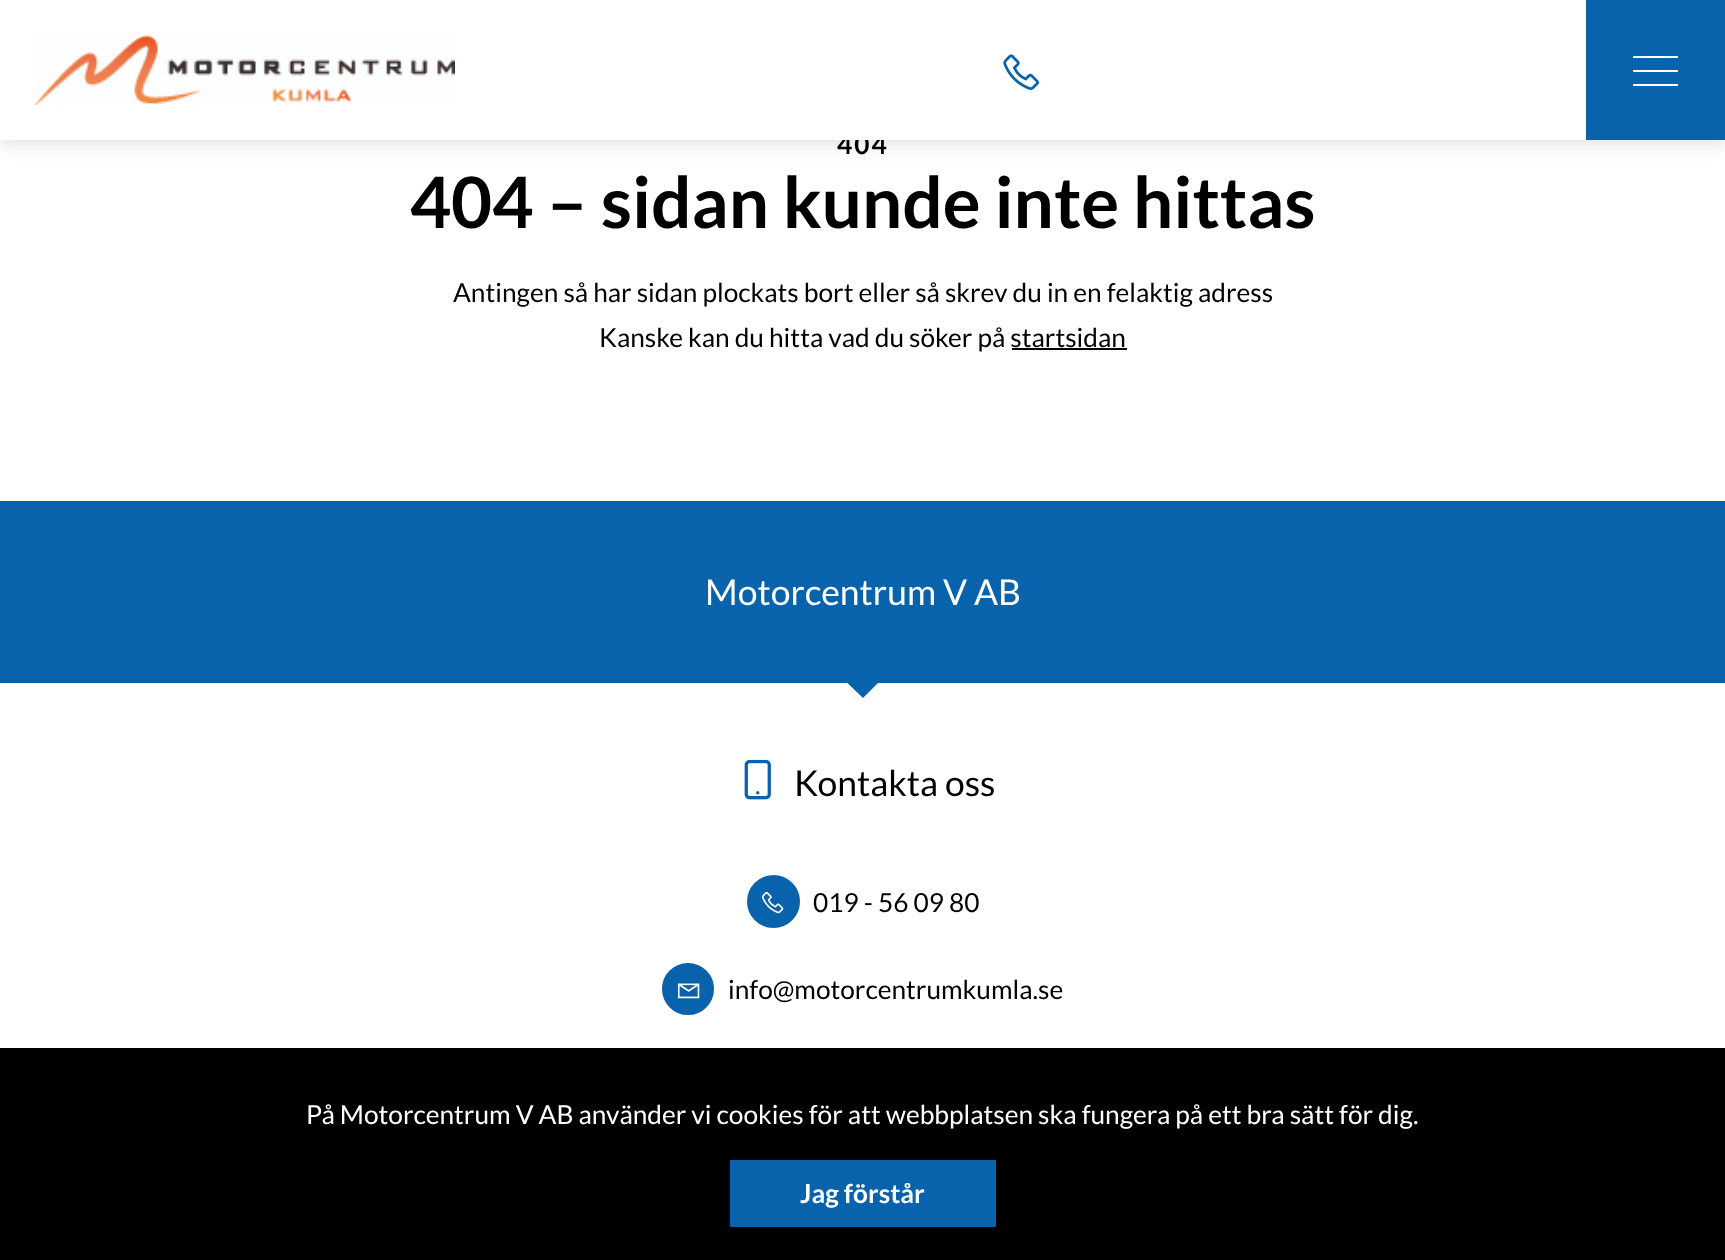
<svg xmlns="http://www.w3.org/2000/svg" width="1725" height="1260">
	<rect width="100%" height="100%" fill="#FFFFFF" />
	<rect x="0" y="4" width="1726" height="140" fill="#000000" fill-opacity="0.12" filter="blur(9px)" />
	<text x="837" y="154" font-family="Lato" font-size="26.25" font-weight="700" letter-spacing="2" fill="#000000">404</text>
	<rect x="0" y="0" width="1586" height="140" fill="#FFFFFF" />
	<image x="35" y="35" width="420" height="70" href="assets/img1.png" />
	<image x="1003" y="54" width="36" height="36" href="assets/img2.png" />
	<rect x="1586" y="0" width="139" height="140" fill="#0863AC" />
	<rect x="1633" y="56" width="45" height="2" fill="#FFFFFF" />
	<rect x="1633" y="70" width="45" height="2" fill="#FFFFFF" />
	<rect x="1633" y="84" width="45" height="2" fill="#FFFFFF" />
	<text x="410" y="228" font-family="Lato" font-size="70.9" font-weight="700" fill="#000000">404 – sidan kunde inte hittas</text>
	<g font-family="Lato" font-size="26.25" fill="#000000">
		<text x="453" y="302">Antingen så har sidan plockats bort eller så skrev du in en felaktig adress</text>
		<text x="599" y="347">Kanske kan du hitta vad du söker på startsidan</text>
	</g>
	<rect x="1012" y="348" width="115" height="2" fill="#000000" />
	<rect x="0" y="501" width="1725" height="182" fill="#0863AC" />
	<text x="705" y="605" font-family="Lato" font-size="35.5" fill="#FFFFFF">Motorcentrum V AB</text>
	<path d="M863 698L838 674L863 649L887 674Z" fill="#0863AC" />
	<image x="744" y="759" width="27" height="41" href="assets/img3.png" />
	<text x="794" y="796" font-family="Lato" font-size="35.5" fill="#000000">Kontakta oss</text>
	<circle cx="773.5" cy="901.5" r="24.5" fill="#0863AC" stroke="#0863AC" stroke-width="4" />
	<image x="762" y="891" width="22" height="23" href="assets/img4.png" />
	<text x="813" y="912" font-family="Lato" font-size="26.25" fill="#000000">019 - 56 09 80</text>
	<circle cx="688" cy="989" r="24" fill="#0863AC" stroke="#0863AC" stroke-width="4" />
	<image x="677" y="983" width="23" height="16" href="assets/img5.png" />
	<text x="728" y="999" font-family="Lato" font-size="26.25" fill="#000000">info@motorcentrumkumla.se</text>
	<rect x="0" y="1048" width="1725" height="212" fill="#000000" />
	<text x="306" y="1124" font-family="Lato" font-size="26.25" fill="#FFFFFF">På Motorcentrum V AB använder vi cookies för att webbplatsen ska fungera på ett bra sätt för dig.</text>
	<rect x="730" y="1160" width="266" height="67" fill="#0863AC" />
	<text x="800" y="1203" font-family="Lato" font-size="26.25" font-weight="700" fill="#FFFFFF">Jag förstår</text>
</svg>
